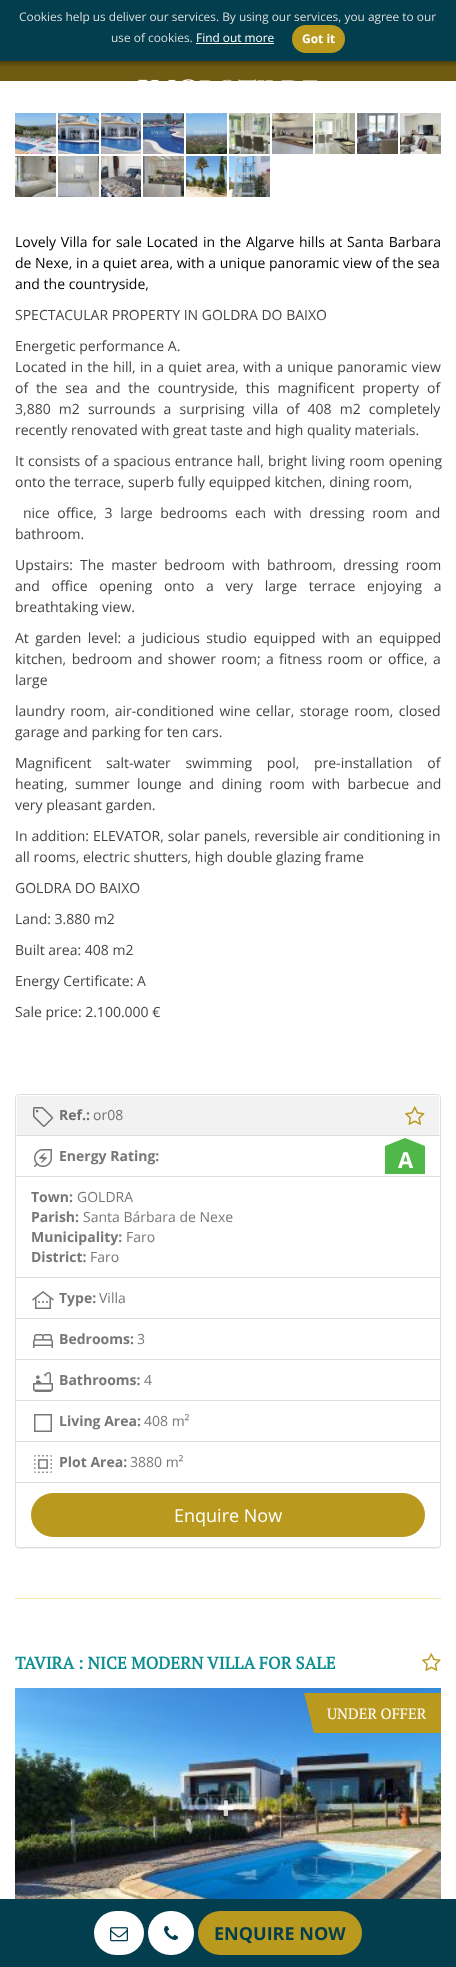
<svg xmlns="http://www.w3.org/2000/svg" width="456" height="1967">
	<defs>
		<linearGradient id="g1" gradientUnits="userSpaceOnUse" x1="228" y1="61" x2="228" y2="81"><stop offset="0" stop-color="#4E400D" /><stop offset="0.3" stop-color="#6F5C12" /><stop offset="1" stop-color="#6F5C12" /></linearGradient>
	</defs>
	<rect width="100%" height="100%" fill="#FFFFFF" />
	<rect x="0" y="0" width="456" height="61" fill="#023E4E" />
	<g font-family="Open Sans" font-size="11.9" fill="#DDDDDD">
		<text x="19" y="21">Cookies help us deliver our services. By using our services, you agree to our</text>
		<text x="111" y="42">use of cookies.</text>
	</g>
	<text x="196" y="42" font-family="Open Sans" font-size="11.9" fill="#FFFFFF">Find out more</text>
	<rect x="196" y="43" width="78" height="1" fill="#FFFFFF" />
	<rect x="292" y="25" width="53" height="28" rx="14" fill="#B9991E" />
	<text x="302" y="43" font-family="Open Sans" font-size="12" font-weight="700" fill="#FFFFFF">Got it</text>
	<rect x="0" y="61" width="456" height="20" fill="url(#g1)" />
	<image x="101" y="113" width="40" height="41" href="assets/img4.png" />
	<image x="143" y="113" width="41" height="41" href="assets/img5.png" />
	<image x="186" y="113" width="41" height="41" href="assets/img6.png" />
	<image x="229" y="113" width="41" height="41" href="assets/img7.png" />
	<image x="272" y="113" width="41" height="41" href="assets/img8.png" />
	<image x="315" y="113" width="40" height="41" href="assets/img9.png" />
	<image x="138" y="79" width="180" height="35" href="assets/img1.png" />
	<image x="15" y="113" width="41" height="41" href="assets/img2.png" />
	<image x="58" y="113" width="41" height="41" href="assets/img3.png" />
	<image x="357" y="113" width="41" height="41" href="assets/img10.png" />
	<image x="400" y="113" width="41" height="41" href="assets/img11.png" />
	<image x="15" y="156" width="41" height="41" href="assets/img12.png" />
	<image x="58" y="156" width="41" height="41" href="assets/img13.png" />
	<image x="101" y="156" width="40" height="41" href="assets/img14.png" />
	<image x="143" y="156" width="41" height="41" href="assets/img15.png" />
	<image x="186" y="156" width="41" height="41" href="assets/img16.png" />
	<image x="229" y="156" width="41" height="41" href="assets/img17.png" />
	<image x="410" y="149" width="18" height="5" href="assets/img18.png" />
	<g font-family="Open Sans" font-size="14" fill="#000000">
		<text x="15" y="247" word-spacing="1.1">Lovely Villa for sale Located in the Algarve hills at Santa Barbara</text>
		<text x="15" y="268">de Nexe, in a quiet area, with a unique panoramic view of the sea</text>
		<text x="15" y="289">and the countryside,</text>
	</g>
	<g font-family="Open Sans" font-size="14" fill="#444444">
		<text x="15" y="320">SPECTACULAR PROPERTY IN GOLDRA DO BAIXO</text>
		<text x="15" y="351">Energetic performance A.</text>
		<text x="15" y="372" word-spacing="0.6">Located in the hill, in a quiet area, with a unique panoramic view</text>
		<text x="15" y="393" word-spacing="4.25">of the sea and the countryside, this magnificent property of</text>
		<text x="15" y="414" word-spacing="4.5">3,880 m2 surrounds a surprising villa of 408 m2 completely</text>
		<text x="15" y="435">recently renovated with great taste and high quality materials.</text>
		<text x="15" y="466" word-spacing="0.5">It consists of a spacious entrance hall, bright living room opening</text>
		<text x="15" y="487">onto the terrace, superb fully equipped kitchen, dining room,</text>
		<text x="23" y="518" word-spacing="4">nice office, 3 large bedrooms each with dressing room and</text>
		<text x="15" y="539">bathroom.</text>
		<text x="15" y="570" word-spacing="3.5">Upstairs: The master bedroom with bathroom, dressing room</text>
		<text x="15" y="591" word-spacing="8">and office opening onto a very large terrace enjoying a</text>
		<text x="15" y="612">breathtaking view.</text>
		<text x="15" y="643" word-spacing="2.75">At garden level: a judicious studio equipped with an equipped</text>
		<text x="15" y="664" word-spacing="1.75">kitchen, bedroom and shower room; a fitness room or office, a</text>
		<text x="15" y="685">large</text>
		<text x="15" y="716" word-spacing="1.75">laundry room, air-conditioned wine cellar, storage room, closed</text>
		<text x="15" y="737">garage and parking for ten cars.</text>
		<text x="15" y="768" word-spacing="11">Magnificent salt-water swimming pool, pre-installation of</text>
		<text x="15" y="789" word-spacing="3.75">heating, summer lounge and dining room with barbecue and</text>
		<text x="15" y="810">very pleasant garden.</text>
		<text x="15" y="841" word-spacing="0.25">In addition: ELEVATOR, solar panels, reversible air conditioning in</text>
		<text x="15" y="862">all rooms, electric shutters, high double glazing frame</text>
		<text x="15" y="893">GOLDRA DO BAIXO</text>
		<text x="15" y="924">Land: 3.880 m2</text>
		<text x="15" y="955">Built area: 408 m2</text>
		<text x="15" y="986">Energy Certificate: A</text>
		<text x="15" y="1017">Sale price: 2.100.000 €</text>
	</g>
	<rect x="15" y="1095" width="426" height="454" rx="4" fill="#000000" fill-opacity="0.05" filter="blur(0.5px)" />
	<rect x="15.5" y="1094.5" width="425" height="453" rx="3.5" fill="#FFFFFF" stroke="#DDDDDD" />
	<path d="M19 1095H437C438.5 1095 440 1096.5 440 1098V1136H16V1098C16 1096.5 17.5 1095 19 1095Z" fill="#FFFFFF" />
	<rect x="17" y="1096" width="422" height="39" fill="#F2F2F2" />
	<image x="33" y="1107" width="20" height="20" href="assets/img19.png" />
	<text x="59" y="1120" font-family="Open Sans" font-size="14" font-weight="700" fill="#717171">Ref.:</text>
	<text x="93" y="1120" font-family="Open Sans" font-size="14" fill="#717171">or08</text>
	<image x="405" y="1106" width="20" height="19" href="assets/img20.png" />
	<rect x="16" y="1135" width="424" height="1" fill="#DDDDDD" />
	<rect x="16" y="1176" width="424" height="1" fill="#DDDDDD" />
	<image x="34" y="1149" width="18" height="18" href="assets/img21.png" />
	<text x="59" y="1161" font-family="Open Sans" font-size="14" font-weight="700" fill="#777777">Energy Rating:</text>
	<rect x="385" y="1146" width="40" height="28" fill="#50B848" />
	<path d="M425 1146H385L405 1138Z" fill="#50B848" />
	<text x="398" y="1168" font-family="Open Sans" font-size="22" font-weight="700" letter-spacing="-1" fill="#FFFFFF">A</text>
	<rect x="16" y="1277" width="424" height="1" fill="#DDDDDD" />
	<text x="31" y="1202" font-family="Open Sans" font-size="14" font-weight="700" fill="#777777">Town:</text>
	<text x="77" y="1202" font-family="Open Sans" font-size="14" fill="#777777">GOLDRA</text>
	<text x="31" y="1222" font-family="Open Sans" font-size="14" font-weight="700" fill="#777777">Parish:</text>
	<text x="83" y="1222" font-family="Open Sans" font-size="14" fill="#777777">Santa Bárbara de Nexe</text>
	<text x="31" y="1242" font-family="Open Sans" font-size="14" font-weight="700" fill="#777777">Municipality:</text>
	<text x="126" y="1242" font-family="Open Sans" font-size="14" fill="#777777">Faro</text>
	<text x="31" y="1262" font-family="Open Sans" font-size="14" font-weight="700" fill="#777777">District:</text>
	<text x="90" y="1262" font-family="Open Sans" font-size="14" fill="#777777">Faro</text>
	<rect x="16" y="1318" width="424" height="1" fill="#DDDDDD" />
	<image x="32" y="1291" width="22" height="18" href="assets/img22.png" />
	<text x="59" y="1303" font-family="Open Sans" font-size="14" font-weight="700" fill="#777777">Type:</text>
	<text x="99" y="1303" font-family="Open Sans" font-size="14" fill="#777777">Villa</text>
	<rect x="16" y="1359" width="424" height="1" fill="#DDDDDD" />
	<image x="33" y="1334" width="20" height="14" href="assets/img23.png" />
	<text x="59" y="1344" font-family="Open Sans" font-size="14" font-weight="700" fill="#777777">Bedrooms:</text>
	<text x="137" y="1344" font-family="Open Sans" font-size="14" fill="#777777">3</text>
	<rect x="16" y="1400" width="424" height="1" fill="#DDDDDD" />
	<image x="33" y="1372" width="20" height="20" href="assets/img24.png" />
	<text x="59" y="1385" font-family="Open Sans" font-size="14" font-weight="700" fill="#777777">Bathrooms:</text>
	<text x="144" y="1385" font-family="Open Sans" font-size="14" fill="#777777">4</text>
	<rect x="16" y="1441" width="424" height="1" fill="#DDDDDD" />
	<image x="34" y="1414" width="18" height="18" href="assets/img25.png" />
	<text x="59" y="1426" font-family="Open Sans" font-size="14" font-weight="700" fill="#777777">Living Area:</text>
	<text x="144" y="1426" font-family="Open Sans" font-size="14" fill="#777777">408 m²</text>
	<image x="34" y="1455" width="18" height="18" href="assets/img26.png" />
	<text x="59" y="1467" font-family="Open Sans" font-size="14" font-weight="700" fill="#777777">Plot Area:</text>
	<text x="130" y="1467" font-family="Open Sans" font-size="14" fill="#777777">3880 m²</text>
	<path d="M16 1482H440V1544C440 1545.5 438.5 1547 437 1547H19C17.5 1547 16 1545.5 16 1544Z" fill="#FFFFFF" />
	<rect x="16" y="1482" width="424" height="1" fill="#DDDDDD" />
	<rect x="31" y="1493" width="394" height="44" rx="22" fill="#B9991E" />
	<text x="174" y="1522" font-family="Open Sans" font-size="18" fill="#FFFFFF">Enquire Now</text>
	<rect x="15" y="1598" width="426" height="1" fill="#F2EAA8" />
	<text x="15" y="1669" font-family="PT Serif" font-size="17" font-weight="700" fill="#0C8E93">TAVIRA : NICE MODERN VILLA FOR SALE</text>
	<image x="422" y="1653" width="19" height="18" href="assets/img27.png" />
	<image x="15" y="1688" width="426" height="211" href="assets/img28.png" />
	<rect x="314" y="1693" width="127" height="40" fill="#B9991E" />
	<path d="M314 1693V1733L304 1693Z" fill="#B9991E" />
	<text x="327" y="1719" font-family="PT Serif" font-size="15" fill="#FFFFFF">UNDER OFFER</text>
	<image x="218" y="1800" width="16" height="16" href="assets/img29.png" />
	<rect x="0" y="1899" width="456" height="68" fill="#023E4E" />
	<rect x="94" y="1911" width="50" height="44" rx="22" fill="#FFFFFF" />
	<image x="110" y="1927" width="18" height="15" href="assets/img30.png" />
	<rect x="148" y="1911" width="46" height="44" rx="22" fill="#FFFFFF" />
	<image x="164" y="1925" width="15" height="15" href="assets/img31.png" />
	<rect x="198" y="1911" width="164" height="44" rx="22" fill="#B9991E" />
	<text x="214" y="1940" font-family="Open Sans" font-size="18" font-weight="700" fill="#023E4E">ENQUIRE NOW</text>
</svg>
